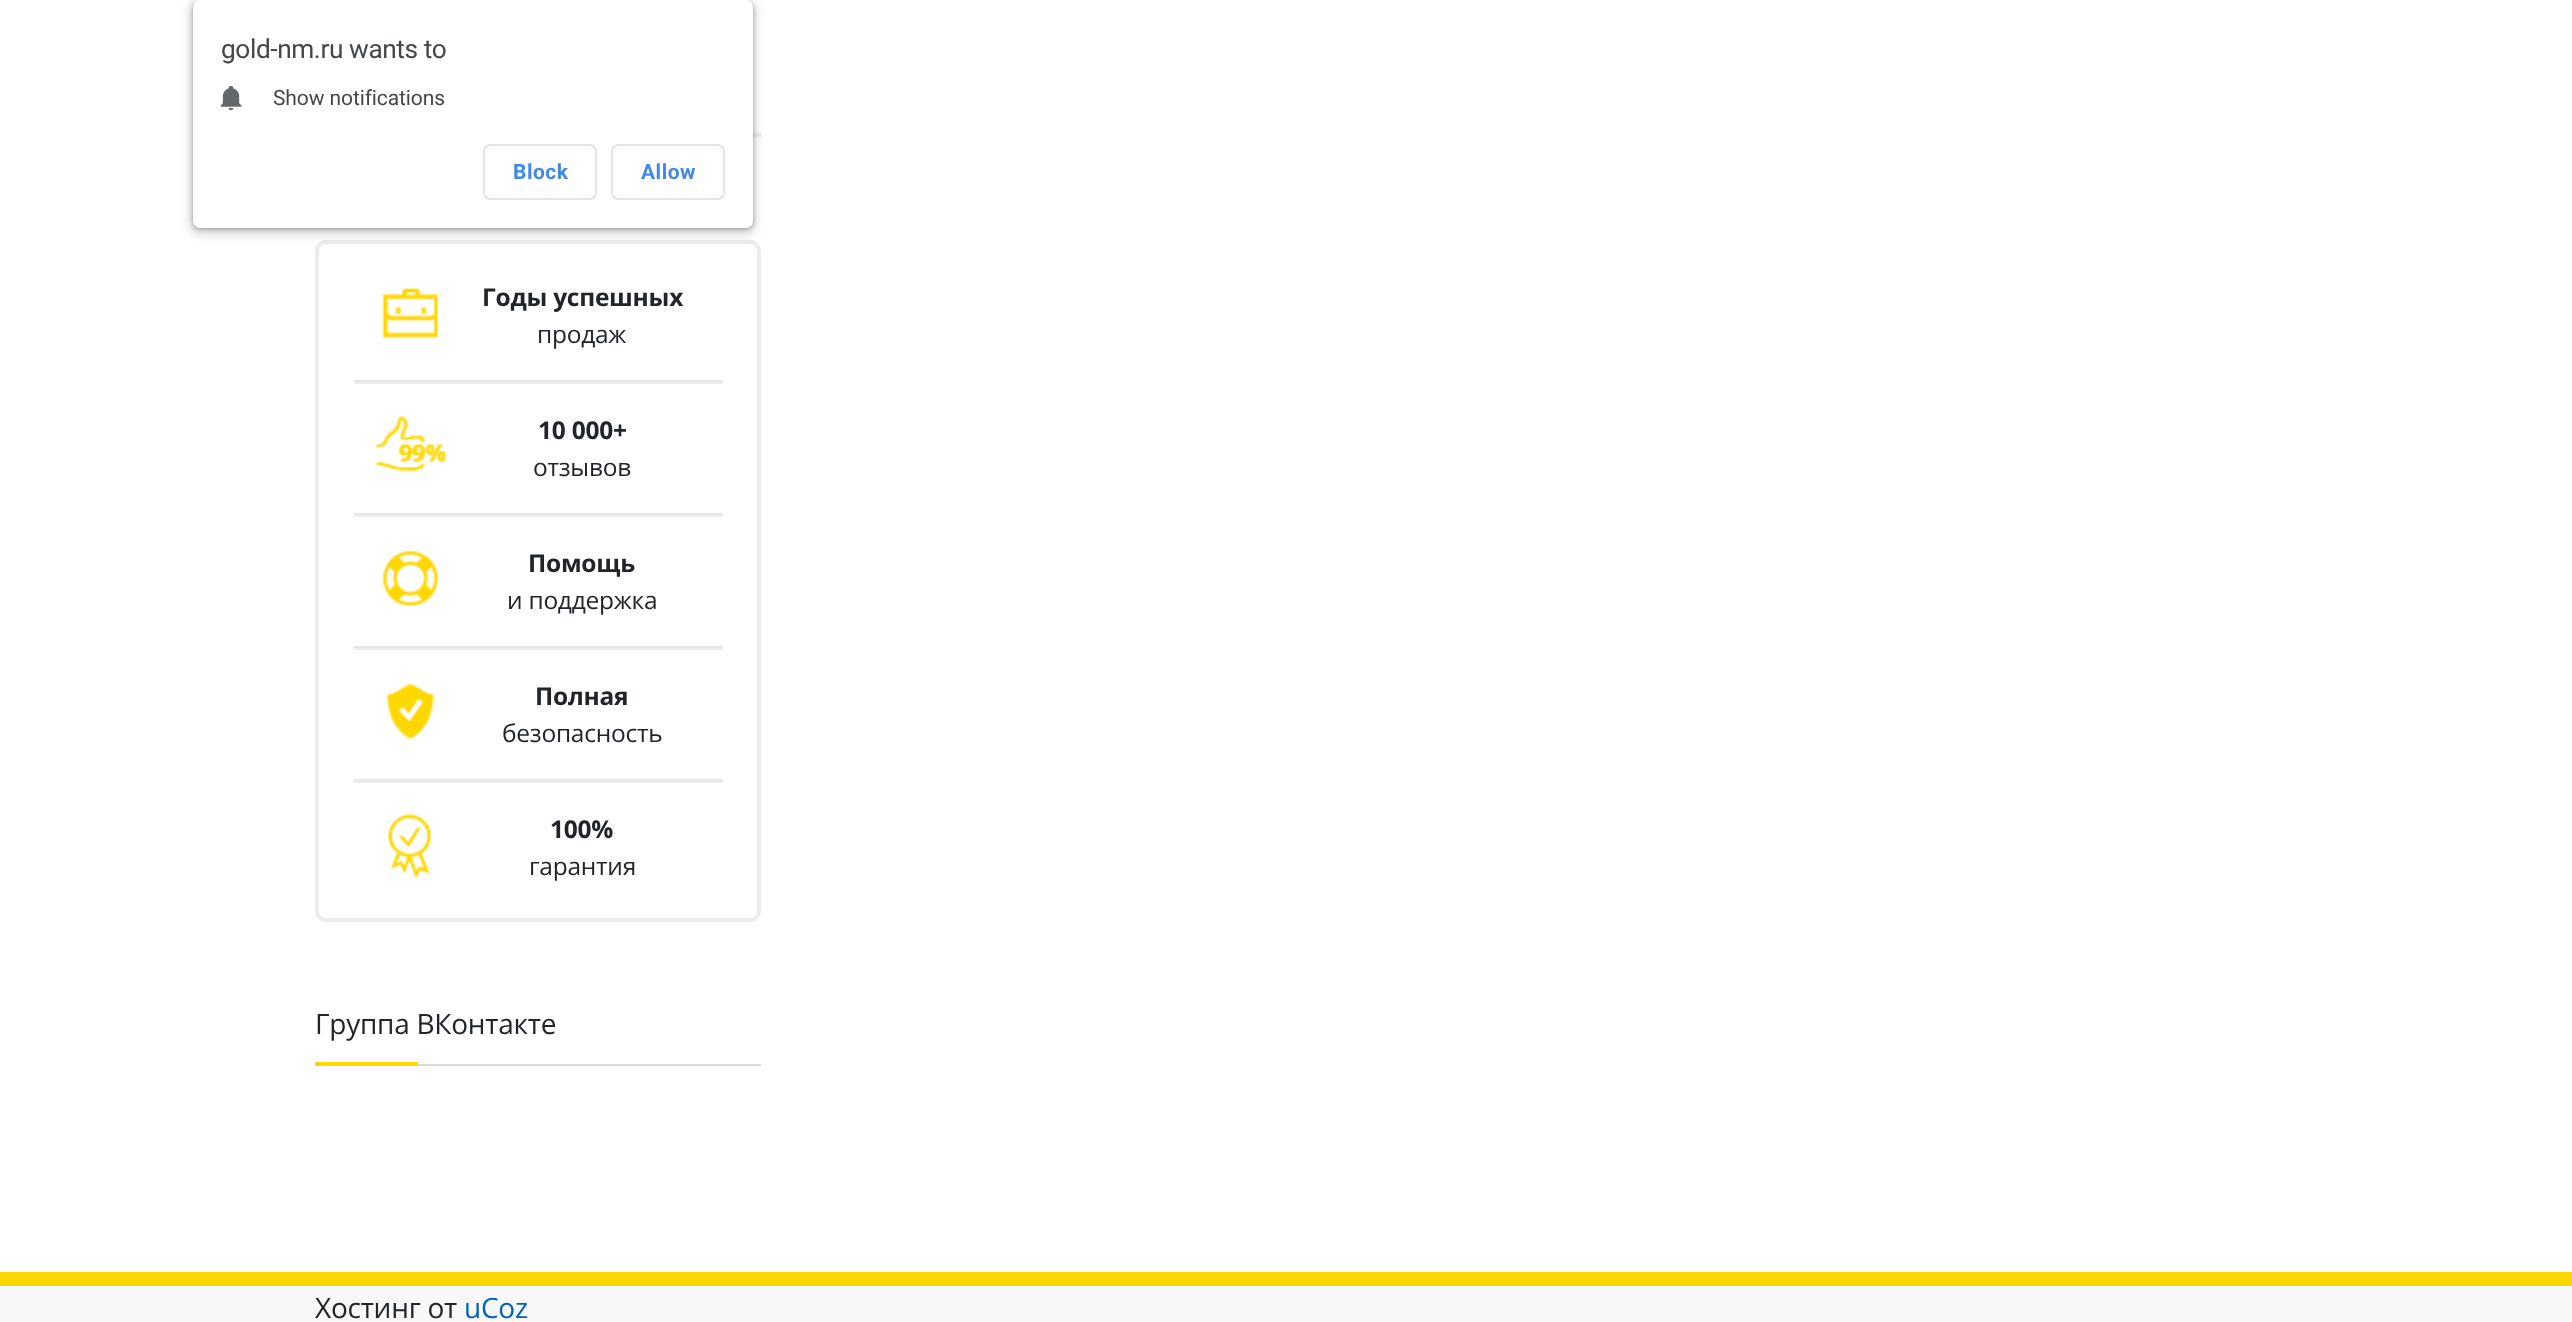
<svg xmlns="http://www.w3.org/2000/svg" width="2572" height="1322">
	<rect width="100%" height="100%" fill="#FFFFFF" />
	<rect x="753" y="133" width="8" height="4" fill="#ECECEC" />
	<rect x="317" y="242" width="442" height="678" rx="9" fill="none" stroke="#ECECEC" stroke-width="4" />
	<rect x="189" y="0" width="567" height="235" rx="11" fill="#000000" fill-opacity="0.15" filter="blur(5px)" />
	<rect x="193" y="2" width="560" height="227" rx="7" fill="#000000" fill-opacity="0.3" filter="blur(2px)" />
	<rect x="193" y="0" width="560" height="228" rx="7" fill="#FFFFFF" />
	<text x="221" y="58" font-family="Roboto" font-size="26.25" letter-spacing="-0.4" fill="#434749">gold-nm.ru wants to</text>
	<image x="221" y="86" width="21" height="24" href="assets/img1.png" />
	<text x="273" y="105" font-family="Roboto" font-size="21" letter-spacing="-0.1" fill="#434749">Show notifications</text>
	<rect x="484" y="145" width="112" height="54" rx="6" fill="none" stroke="#E4E4E4" stroke-width="2" />
	<text x="513" y="179" font-family="Roboto" font-size="21" font-weight="700" letter-spacing="0.5" fill="#4089E8">Block</text>
	<rect x="612" y="145" width="112" height="54" rx="6" fill="none" stroke="#E4E4E4" stroke-width="2" />
	<text x="641" y="179" font-family="Roboto" font-size="21" font-weight="700" letter-spacing="0.5" fill="#4089E8">Allow</text>
	<image x="382" y="288" width="56" height="51" href="assets/img2.png" />
	<text x="482" y="306" font-family="Open Sans" font-size="24.5" font-weight="700" letter-spacing="-0.25" fill="#212529">Годы успешных</text>
	<text x="537" y="343" font-family="Open Sans" font-size="24.5" letter-spacing="-0.25" fill="#212529">продаж</text>
	<rect x="354" y="380" width="369" height="2" fill="#E6E6E6" />
	<rect x="354" y="382" width="369" height="2" fill="#ECECEC" />
	<image x="376" y="416" width="71" height="56" href="assets/img3.png" />
	<text x="538" y="439" font-family="Open Sans" font-size="24.5" font-weight="700" letter-spacing="-0.25" fill="#212529">10 000+</text>
	<text x="533" y="476" font-family="Open Sans" font-size="24.5" letter-spacing="-0.25" fill="#212529">отзывов</text>
	<rect x="354" y="513" width="369" height="2" fill="#E6E6E6" />
	<rect x="354" y="515" width="369" height="2" fill="#ECECEC" />
	<image x="382" y="550" width="56" height="56" href="assets/img4.png" />
	<text x="528" y="572" font-family="Open Sans" font-size="24.5" font-weight="700" letter-spacing="-0.25" fill="#212529">Помощь</text>
	<text x="507" y="609" font-family="Open Sans" font-size="24.5" letter-spacing="-0.25" fill="#212529">и поддержка</text>
	<rect x="354" y="646" width="369" height="2" fill="#E6E6E6" />
	<rect x="354" y="648" width="369" height="2" fill="#ECECEC" />
	<image x="386" y="683" width="49" height="56" href="assets/img5.png" />
	<text x="535" y="705" font-family="Open Sans" font-size="24.5" font-weight="700" letter-spacing="-0.25" fill="#212529">Полная</text>
	<text x="502" y="742" font-family="Open Sans" font-size="24.5" letter-spacing="-0.25" fill="#212529">безопасность</text>
	<rect x="354" y="779" width="369" height="2" fill="#E6E6E6" />
	<rect x="354" y="781" width="369" height="2" fill="#ECECEC" />
	<image x="388" y="813" width="43" height="66" href="assets/img6.png" />
	<text x="550" y="838" font-family="Open Sans" font-size="24.5" font-weight="700" letter-spacing="-0.25" fill="#212529">100%</text>
	<text x="529" y="875" font-family="Open Sans" font-size="24.5" letter-spacing="-0.25" fill="#212529">гарантия</text>
	<rect x="418" y="1064" width="343" height="2" fill="#DADADA" />
	<text x="315" y="1034" font-family="Open Sans" font-size="28" letter-spacing="-0.25" fill="#212529">Группа ВКонтакте</text>
	<rect x="315" y="1062" width="103" height="4" fill="#FED700" />
	<rect x="0" y="1286" width="2572" height="36" fill="#F8F8F8" />
	<rect x="0" y="1272" width="2572" height="14" fill="#FCD800" />
	<text x="315" y="1318" font-family="Open Sans" font-size="28" letter-spacing="-0.25" fill="#212529">Хостинг от</text>
	<text x="464" y="1318" font-family="Open Sans" font-size="28" letter-spacing="-0.25" fill="#0062BD">uCoz</text>
</svg>
